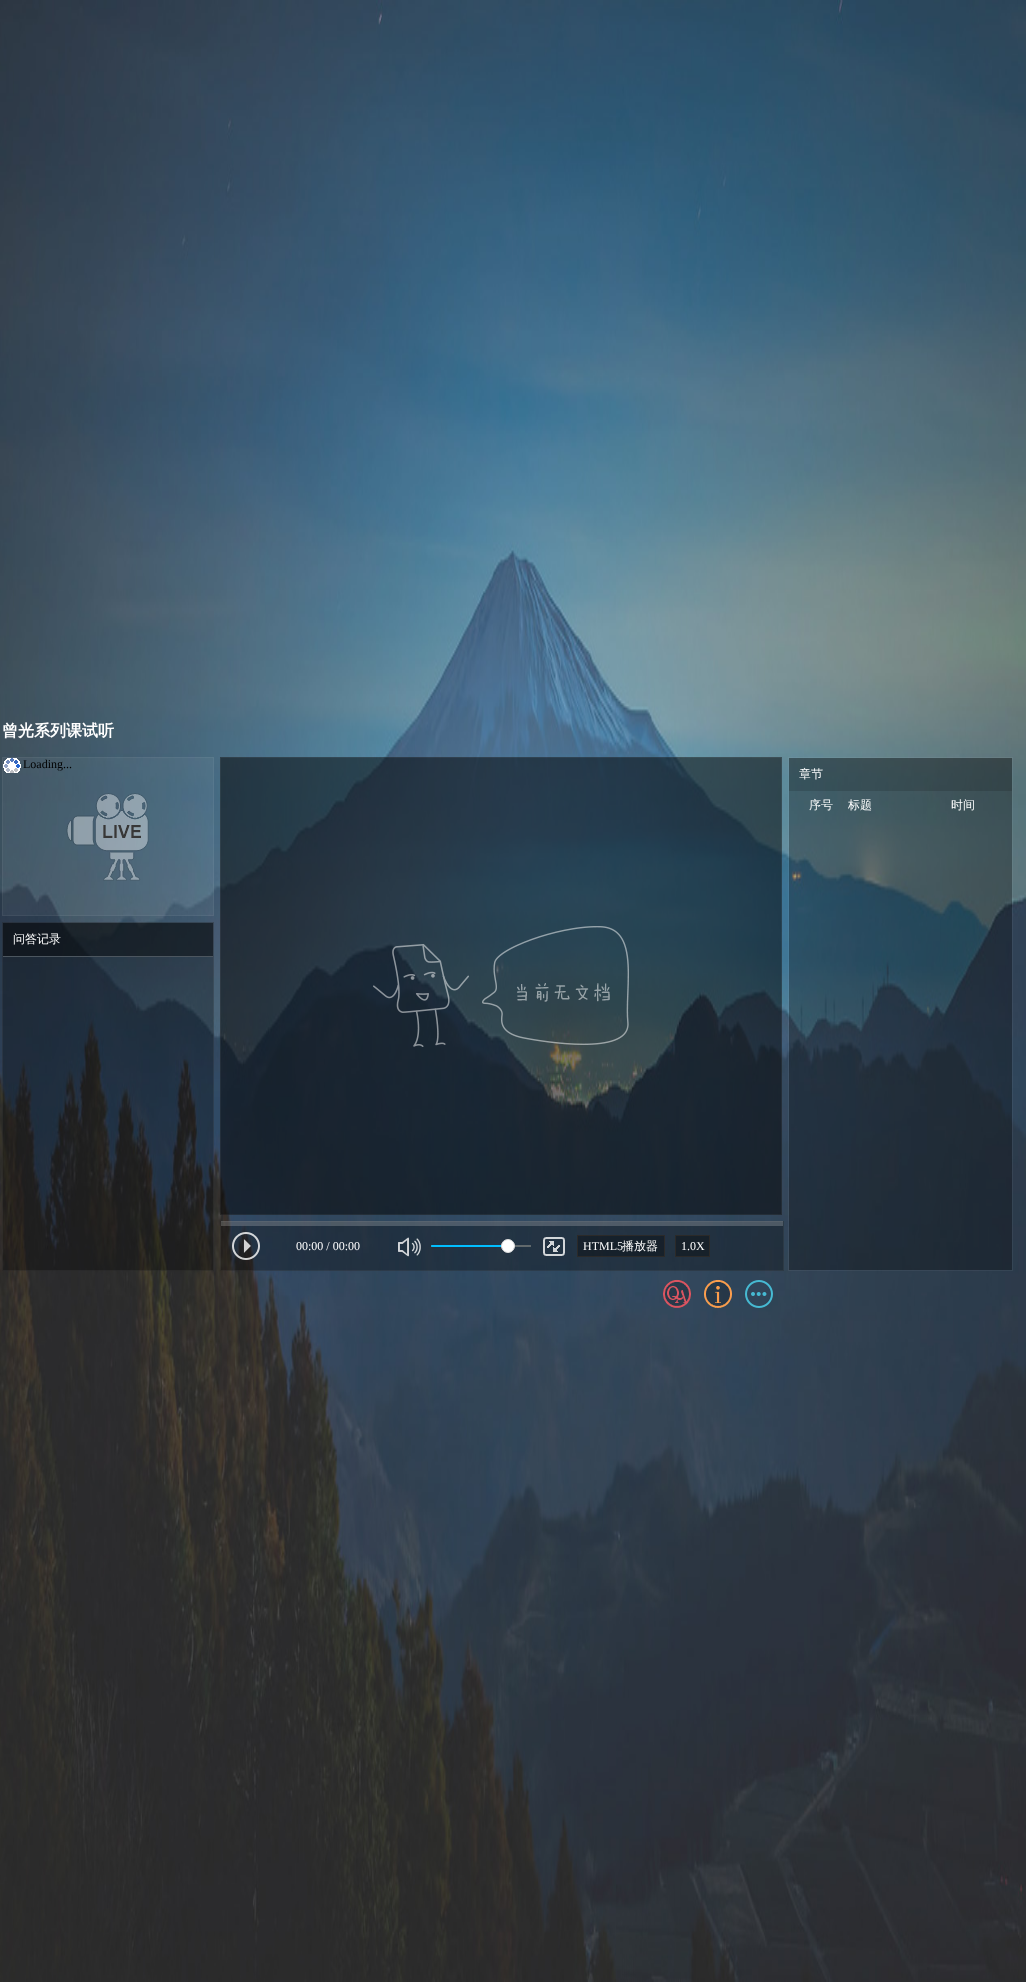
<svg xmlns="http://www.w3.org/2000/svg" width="1026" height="1982">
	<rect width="100%" height="100%" fill="#FFFFFF" />
	<image x="0" y="0" width="1026" height="1982" href="assets/img1.png" />
	<text x="2" y="736" font-family="WenQuanYi Zen Hei" font-size="16" font-weight="700" fill="#FFFFFF">曾光系列课试听</text>
	<rect x="2" y="757" width="212" height="159" fill="#FFFFFF" fill-opacity="0.05" />
	<image x="66" y="793" width="83" height="88" href="assets/img2.png" />
	<rect x="2.5" y="757.5" width="211" height="158" fill="none" stroke="#FFFFFF" stroke-opacity="0.05" />
	<image x="3" y="758" width="18" height="15" href="assets/img3.png" />
	<text x="23" y="768" font-family="Liberation Serif" font-size="12" fill="#000000">Loading...</text>
	<rect x="2" y="922" width="212" height="349" fill="#000000" fill-opacity="0.3" />
	<rect x="2.5" y="922.5" width="211" height="348" fill="none" stroke="#FFFFFF" stroke-opacity="0.05" />
	<rect x="3" y="923" width="210" height="33" fill="#000000" fill-opacity="0.4" />
	<rect x="3" y="956" width="210" height="1" fill="#4C565F" />
	<text x="13" y="943" font-family="WenQuanYi Zen Hei" font-size="12" font-weight="500" fill="#FFFFFF">问答记录</text>
	<rect x="788.5" y="757.5" width="224" height="513" fill="none" stroke="#FFFFFF" stroke-opacity="0.05" />
	<rect x="789" y="758" width="223" height="33" fill="#000000" fill-opacity="0.4" />
	<text x="799" y="778" font-family="WenQuanYi Zen Hei" font-size="12" font-weight="500" fill="#FFFFFF">章节</text>
	<rect x="789" y="791" width="223" height="28" fill="#000000" fill-opacity="0.3" />
	<g font-family="WenQuanYi Zen Hei" font-size="12" font-weight="500" fill="#FFFFFF">
		<text x="809" y="809">序号</text>
		<text x="848" y="809">标题</text>
		<text x="951" y="809">时间</text>
	</g>
	<rect x="789" y="819" width="223" height="451" fill="#000000" fill-opacity="0.3" />
	<rect x="220" y="757" width="562" height="458" fill="#000000" fill-opacity="0.5" />
	<rect x="220.5" y="757.5" width="561" height="457" fill="none" stroke="#FFFFFF" stroke-opacity="0.05" />
	<image x="373" y="926" width="256" height="121" href="assets/img4.png" />
	<rect x="220" y="1221" width="564" height="50" fill="#000000" fill-opacity="0.3" />
	<rect x="220.5" y="1221.5" width="563" height="49" fill="none" stroke="#FFFFFF" stroke-opacity="0.05" />
	<rect x="221" y="1221" width="562" height="5" fill="#FFFFFF" fill-opacity="0.2" />
	<image x="232" y="1232" width="28" height="28" href="assets/img5.png" />
	<text x="296" y="1250" font-family="Liberation Serif" font-size="12" fill="#FFFFFF">00:00 / 00:00</text>
	<image x="398" y="1237" width="23" height="20" href="assets/img6.png" />
	<rect x="431" y="1245" width="100" height="2" fill="#61696C" />
	<rect x="431" y="1245" width="75" height="2" rx="1" fill="#01BEFF" />
	<circle cx="508" cy="1246" r="6.5" fill="#FFFFFF" stroke="#DDDDDD" />
	<image x="543" y="1237" width="22" height="19" href="assets/img7.png" />
	<rect x="577.5" y="1235.5" width="87" height="21" fill="#000000" fill-opacity="0.35" stroke="#2B2A29" />
	<text x="583" y="1250" font-family="Liberation Serif" font-size="12" fill="#FFFFFF">HTML5</text>
	<text x="622" y="1250" font-family="WenQuanYi Zen Hei" font-size="12" font-weight="500" fill="#FFFFFF">播放器</text>
	<rect x="675.5" y="1235.5" width="34" height="21" fill="#17212A" stroke="#2B2A29" />
	<text x="681" y="1250" font-family="Liberation Serif" font-size="12" fill="#FFFFFF">1.0X</text>
	<image x="663" y="1279" width="28" height="29" href="assets/img8.png" />
	<image x="704" y="1279" width="28" height="29" href="assets/img9.png" />
	<image x="745" y="1280" width="28" height="28" href="assets/img10.png" />
</svg>
